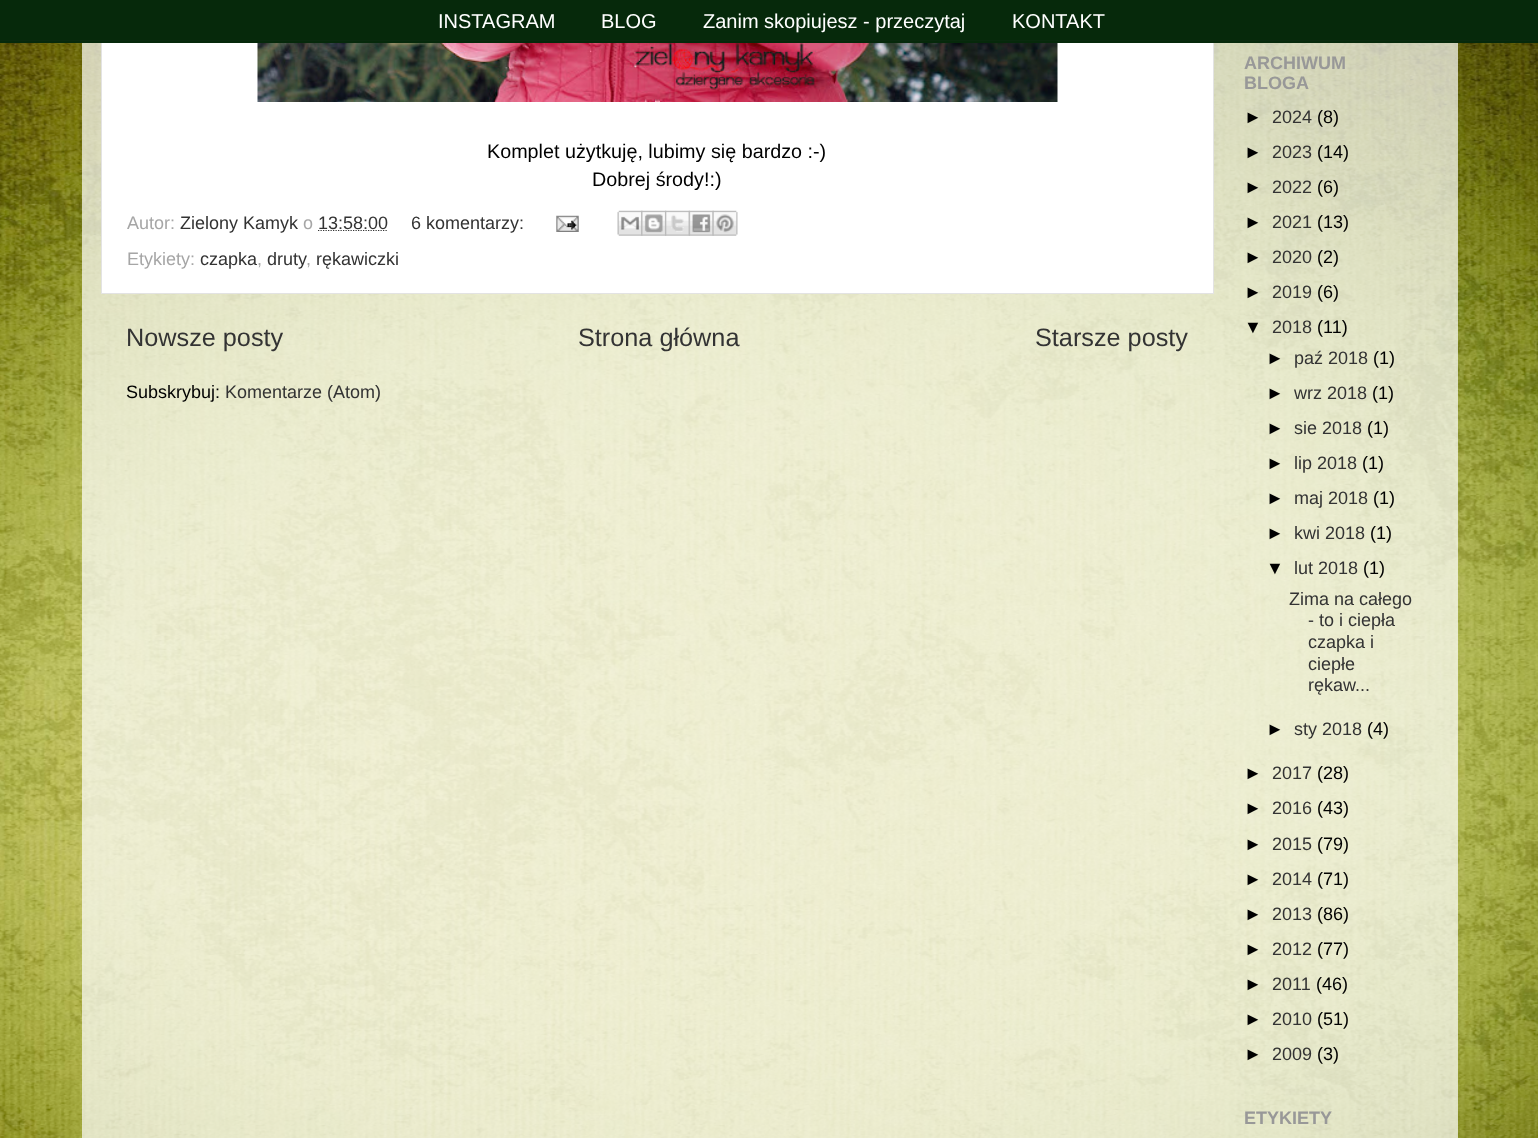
<svg xmlns="http://www.w3.org/2000/svg" width="1538" height="1138">
	<rect width="100%" height="100%" fill="#FFFFFF" />
	<image x="0" y="43" width="1538" height="1095" href="assets/img1.png" />
	<rect x="82" y="43" width="1376" height="1095" fill="#FFFFFF" fill-opacity="0.7" />
	<rect x="102" y="43" width="1111" height="250" fill="#FFFFFF" />
	<rect x="101.5" y="-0.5" width="1112" height="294" fill="none" stroke="#E3E3E3" />
	<rect x="0" y="0" width="1538" height="43" fill="#06290B" />
	<rect x="0" y="40" width="1538" height="1" fill="#0A2A0F" />
	<g font-family="Liberation Sans" font-size="20" fill="#FFFFFF">
		<text x="438" y="28">INSTAGRAM</text>
		<text x="601" y="28">BLOG</text>
		<text x="703" y="28">Zanim skopiujesz - przeczytaj</text>
		<text x="1012" y="28">KONTAKT</text>
	</g>
	<image x="257" y="43" width="801" height="59" href="assets/img2.png" />
	<g font-family="Liberation Sans" font-size="19.75" fill="#000000">
		<text x="487" y="158">Komplet użytkuję, lubimy się bardzo :-)</text>
		<text x="592" y="186">Dobrej środy!:)</text>
	</g>
	<text x="127" y="229" font-family="Liberation Sans" font-size="18" fill="#A6A6A6">Autor:</text>
	<text x="180" y="229" font-family="Liberation Sans" font-size="18" fill="#333333">Zielony Kamyk</text>
	<text x="303" y="229" font-family="Liberation Sans" font-size="18" fill="#A6A6A6">o</text>
	<path d="M318 230.5H388" fill="none" stroke="#333333" stroke-width="1.2" stroke-dasharray="1.25 1.25" />
	<g font-family="Liberation Sans" font-size="18" fill="#333333">
		<text x="318" y="229">13:58:00</text>
		<text x="411" y="229">6 komentarzy:</text>
	</g>
	<image x="556" y="215" width="23" height="17" href="assets/img3.png" />
	<image x="617" y="210" width="26" height="26" href="assets/img4.png" />
	<image x="641" y="210" width="26" height="26" href="assets/img5.png" />
	<image x="665" y="210" width="25" height="26" href="assets/img6.png" />
	<image x="688" y="210" width="26" height="26" href="assets/img7.png" />
	<image x="712" y="210" width="26" height="26" href="assets/img8.png" />
	<text x="127" y="265" font-family="Liberation Sans" font-size="18" fill="#A6A6A6">Etykiety:</text>
	<text x="200" y="265" font-family="Liberation Sans" font-size="18" fill="#333333">czapka</text>
	<text x="257" y="265" font-family="Liberation Sans" font-size="18" fill="#A6A6A6">,</text>
	<text x="267" y="265" font-family="Liberation Sans" font-size="18" fill="#333333">druty</text>
	<text x="306" y="265" font-family="Liberation Sans" font-size="18" fill="#A6A6A6">,</text>
	<text x="316" y="265" font-family="Liberation Sans" font-size="18" fill="#333333">rękawiczki</text>
	<g font-family="Liberation Sans" font-size="25.25" fill="#333333">
		<text x="126" y="346">Nowsze posty</text>
		<text x="578" y="346">Strona główna</text>
		<text x="1035" y="346">Starsze posty</text>
	</g>
	<text x="126" y="398" font-family="Liberation Sans" font-size="18" fill="#000000">Subskrybuj:</text>
	<text x="225" y="398" font-family="Liberation Sans" font-size="18" fill="#333333">Komentarze (Atom)</text>
	<g font-family="Liberation Sans" font-size="18" font-weight="700" fill="#989898">
		<text x="1244" y="69">ARCHIWUM</text>
		<text x="1244" y="89">BLOGA</text>
	</g>
	<text x="1244" y="123" font-family="Liberation Sans" font-size="18" fill="#000000">►</text>
	<text x="1272" y="123" font-family="Liberation Sans" font-size="18" fill="#333333">2024</text>
	<g font-family="Liberation Sans" font-size="18" fill="#000000">
		<text x="1317" y="123">(8)</text>
		<text x="1244" y="158">►</text>
	</g>
	<text x="1272" y="158" font-family="Liberation Sans" font-size="18" fill="#333333">2023</text>
	<g font-family="Liberation Sans" font-size="18" fill="#000000">
		<text x="1317" y="158">(14)</text>
		<text x="1244" y="193">►</text>
	</g>
	<text x="1272" y="193" font-family="Liberation Sans" font-size="18" fill="#333333">2022</text>
	<g font-family="Liberation Sans" font-size="18" fill="#000000">
		<text x="1317" y="193">(6)</text>
		<text x="1244" y="228">►</text>
	</g>
	<text x="1272" y="228" font-family="Liberation Sans" font-size="18" fill="#333333">2021</text>
	<g font-family="Liberation Sans" font-size="18" fill="#000000">
		<text x="1317" y="228">(13)</text>
		<text x="1244" y="263">►</text>
	</g>
	<text x="1272" y="263" font-family="Liberation Sans" font-size="18" fill="#333333">2020</text>
	<g font-family="Liberation Sans" font-size="18" fill="#000000">
		<text x="1317" y="263">(2)</text>
		<text x="1244" y="298">►</text>
	</g>
	<text x="1272" y="298" font-family="Liberation Sans" font-size="18" fill="#333333">2019</text>
	<g font-family="Liberation Sans" font-size="18" fill="#000000">
		<text x="1317" y="298">(6)</text>
		<text x="1244" y="333">▼</text>
	</g>
	<text x="1272" y="333" font-family="Liberation Sans" font-size="18" fill="#333333">2018</text>
	<g font-family="Liberation Sans" font-size="18" fill="#000000">
		<text x="1317" y="333">(11)</text>
		<text x="1266" y="364">►</text>
	</g>
	<text x="1294" y="364" font-family="Liberation Sans" font-size="18" fill="#333333">paź 2018</text>
	<g font-family="Liberation Sans" font-size="18" fill="#000000">
		<text x="1373" y="364">(1)</text>
		<text x="1266" y="399">►</text>
	</g>
	<text x="1294" y="399" font-family="Liberation Sans" font-size="18" fill="#333333">wrz 2018</text>
	<g font-family="Liberation Sans" font-size="18" fill="#000000">
		<text x="1372" y="399">(1)</text>
		<text x="1266" y="434">►</text>
	</g>
	<text x="1294" y="434" font-family="Liberation Sans" font-size="18" fill="#333333">sie 2018</text>
	<g font-family="Liberation Sans" font-size="18" fill="#000000">
		<text x="1367" y="434">(1)</text>
		<text x="1266" y="469">►</text>
	</g>
	<text x="1294" y="469" font-family="Liberation Sans" font-size="18" fill="#333333">lip 2018</text>
	<g font-family="Liberation Sans" font-size="18" fill="#000000">
		<text x="1362" y="469">(1)</text>
		<text x="1266" y="504">►</text>
	</g>
	<text x="1294" y="504" font-family="Liberation Sans" font-size="18" fill="#333333">maj 2018</text>
	<g font-family="Liberation Sans" font-size="18" fill="#000000">
		<text x="1373" y="504">(1)</text>
		<text x="1266" y="539">►</text>
	</g>
	<text x="1294" y="539" font-family="Liberation Sans" font-size="18" fill="#333333">kwi 2018</text>
	<g font-family="Liberation Sans" font-size="18" fill="#000000">
		<text x="1370" y="539">(1)</text>
		<text x="1266" y="574">▼</text>
	</g>
	<text x="1294" y="574" font-family="Liberation Sans" font-size="18" fill="#333333">lut 2018</text>
	<text x="1363" y="574" font-family="Liberation Sans" font-size="18" fill="#000000">(1)</text>
	<g font-family="Liberation Sans" font-size="18" fill="#333333">
		<text x="1289" y="605">Zima na całego</text>
		<text x="1308" y="626">- to i ciepła</text>
		<text x="1308" y="648">czapka i</text>
		<text x="1308" y="670">ciepłe</text>
		<text x="1308" y="691">rękaw...</text>
	</g>
	<text x="1266" y="735" font-family="Liberation Sans" font-size="18" fill="#000000">►</text>
	<text x="1294" y="735" font-family="Liberation Sans" font-size="18" fill="#333333">sty 2018</text>
	<g font-family="Liberation Sans" font-size="18" fill="#000000">
		<text x="1367" y="735">(4)</text>
		<text x="1244" y="779">►</text>
	</g>
	<text x="1272" y="779" font-family="Liberation Sans" font-size="18" fill="#333333">2017</text>
	<g font-family="Liberation Sans" font-size="18" fill="#000000">
		<text x="1317" y="779">(28)</text>
		<text x="1244" y="814">►</text>
	</g>
	<text x="1272" y="814" font-family="Liberation Sans" font-size="18" fill="#333333">2016</text>
	<g font-family="Liberation Sans" font-size="18" fill="#000000">
		<text x="1317" y="814">(43)</text>
		<text x="1244" y="850">►</text>
	</g>
	<text x="1272" y="850" font-family="Liberation Sans" font-size="18" fill="#333333">2015</text>
	<g font-family="Liberation Sans" font-size="18" fill="#000000">
		<text x="1317" y="850">(79)</text>
		<text x="1244" y="885">►</text>
	</g>
	<text x="1272" y="885" font-family="Liberation Sans" font-size="18" fill="#333333">2014</text>
	<g font-family="Liberation Sans" font-size="18" fill="#000000">
		<text x="1317" y="885">(71)</text>
		<text x="1244" y="920">►</text>
	</g>
	<text x="1272" y="920" font-family="Liberation Sans" font-size="18" fill="#333333">2013</text>
	<g font-family="Liberation Sans" font-size="18" fill="#000000">
		<text x="1317" y="920">(86)</text>
		<text x="1244" y="955">►</text>
	</g>
	<text x="1272" y="955" font-family="Liberation Sans" font-size="18" fill="#333333">2012</text>
	<g font-family="Liberation Sans" font-size="18" fill="#000000">
		<text x="1317" y="955">(77)</text>
		<text x="1244" y="990">►</text>
	</g>
	<text x="1272" y="990" font-family="Liberation Sans" font-size="18" fill="#333333">2011</text>
	<g font-family="Liberation Sans" font-size="18" fill="#000000">
		<text x="1316" y="990">(46)</text>
		<text x="1244" y="1025">►</text>
	</g>
	<text x="1272" y="1025" font-family="Liberation Sans" font-size="18" fill="#333333">2010</text>
	<g font-family="Liberation Sans" font-size="18" fill="#000000">
		<text x="1317" y="1025">(51)</text>
		<text x="1244" y="1060">►</text>
	</g>
	<text x="1272" y="1060" font-family="Liberation Sans" font-size="18" fill="#333333">2009</text>
	<text x="1317" y="1060" font-family="Liberation Sans" font-size="18" fill="#000000">(3)</text>
	<text x="1244" y="1124" font-family="Liberation Sans" font-size="18" font-weight="700" fill="#989898">ETYKIETY</text>
</svg>
